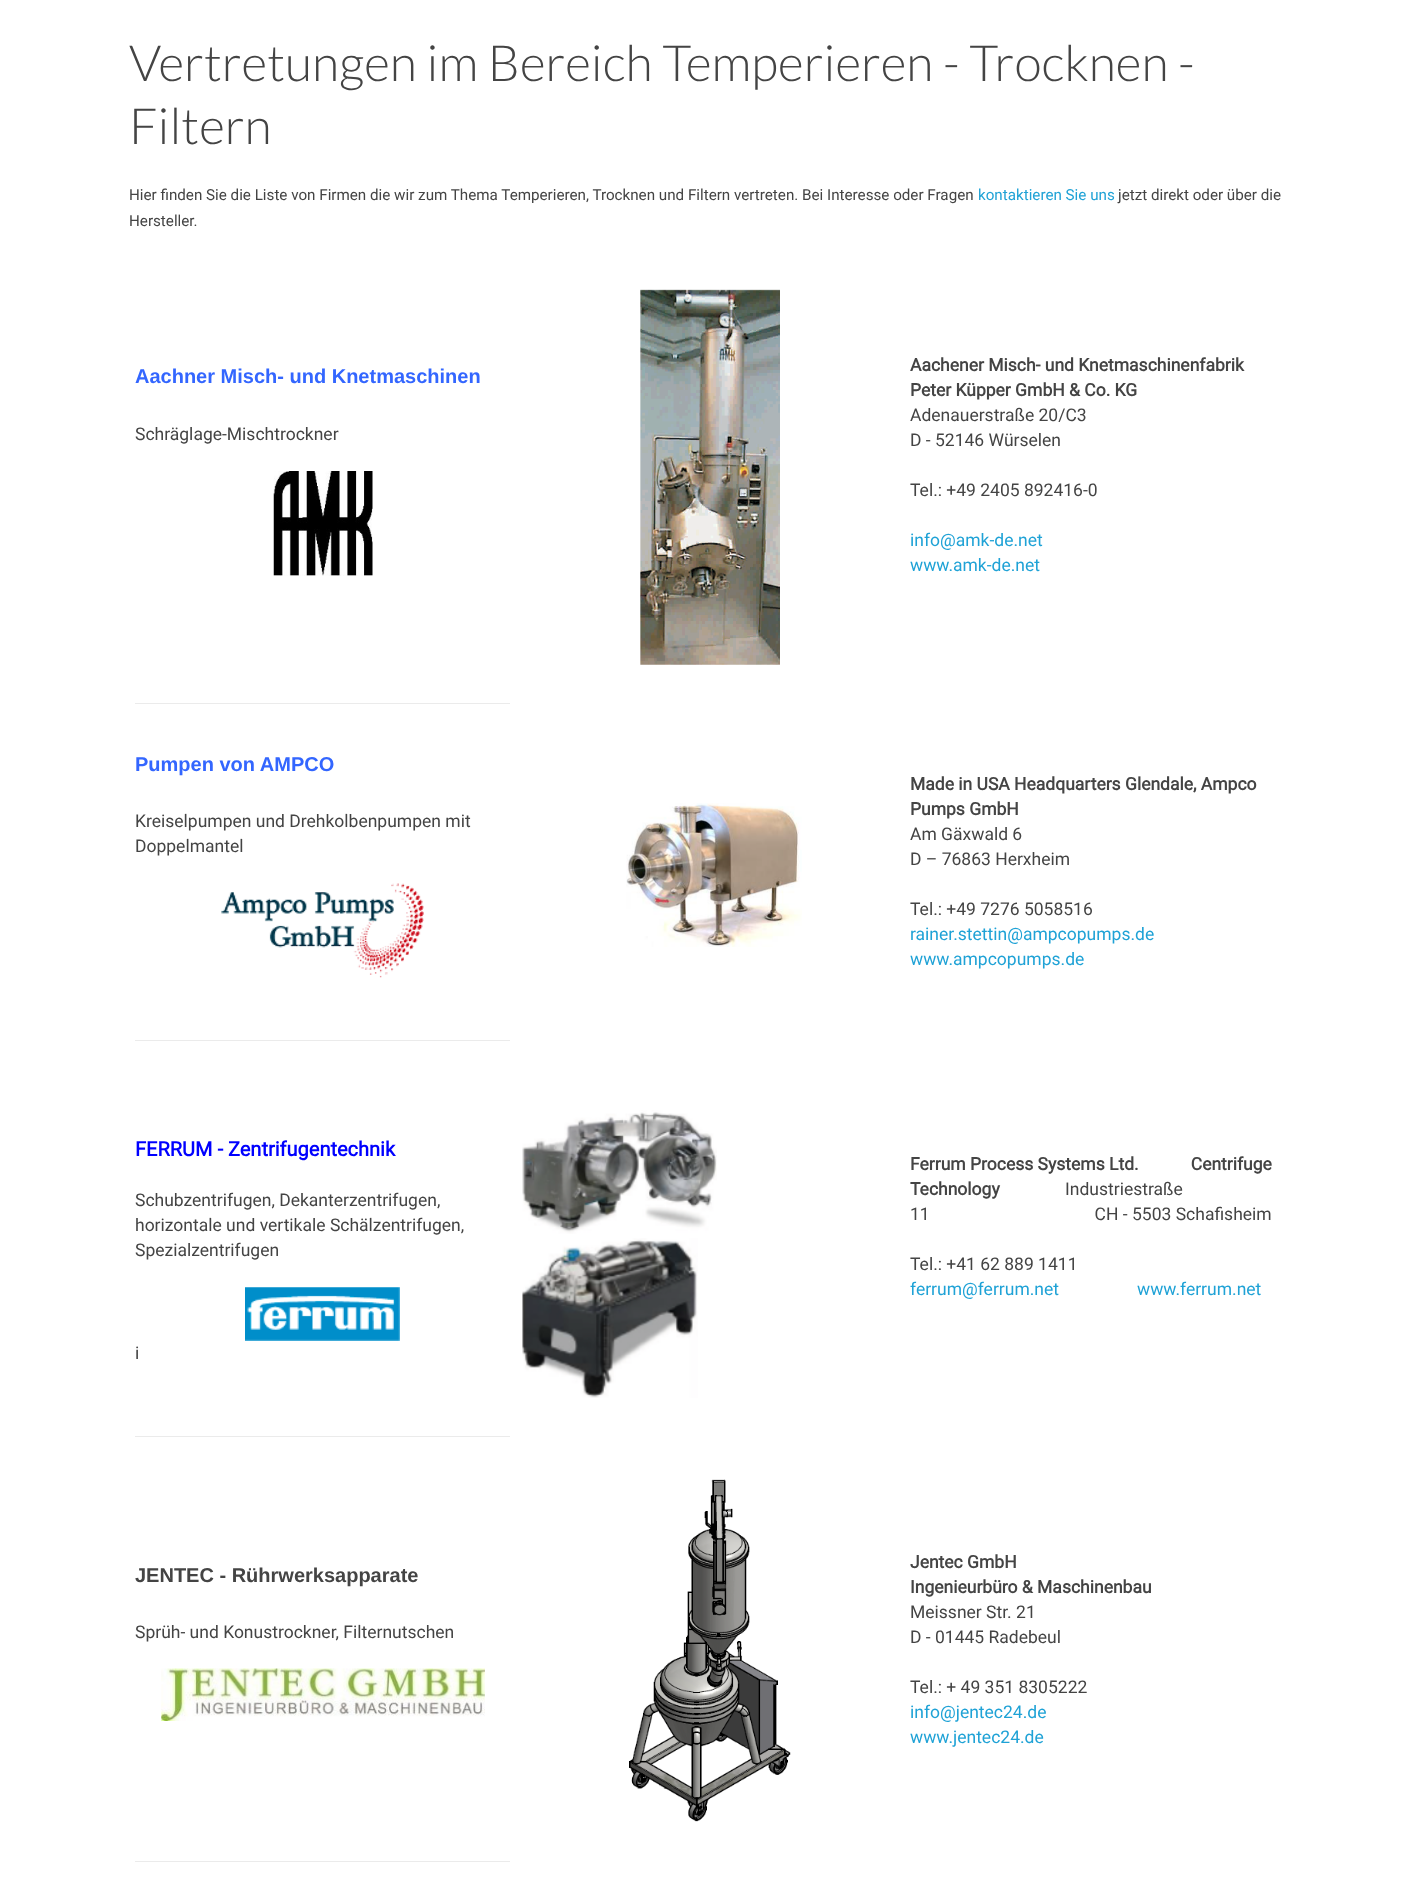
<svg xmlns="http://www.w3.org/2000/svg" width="1419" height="1883">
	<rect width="100%" height="100%" fill="#FFFFFF" />
	<g font-family="Lato" font-size="50" font-weight="300" fill="#444444">
		<text x="129" y="81">Vertretungen im Bereich Temperieren - Trocknen -</text>
		<text x="129" y="144">Filtern</text>
	</g>
	<text x="129" y="200" font-family="Roboto" font-size="15.2" fill="#444444">Hier finden Sie die Liste von Firmen die wir zum Thema Temperieren, Trocknen und Filtern vertreten. Bei Interesse oder Fragen</text>
	<text x="978" y="200" font-family="Roboto" font-size="15.2" fill="#1FA2D6">kontaktieren Sie uns</text>
	<g font-family="Roboto" font-size="15.2" fill="#444444">
		<text x="1118" y="200">jetzt direkt oder über die</text>
		<text x="129" y="226">Hersteller.</text>
	</g>
	<text x="135" y="383" font-family="Liberation Sans" font-size="20" font-weight="700" fill="#3366FF">Aachner Misch- und Knetmaschinen</text>
	<text x="135" y="440" font-family="Roboto" font-size="17.5" fill="#444444">Schräglage-Mischtrockner</text>
	<image x="273" y="471" width="100" height="105" href="assets/img1.png" />
	<image x="640" y="289" width="140" height="376" href="assets/img2.png" />
	<g font-family="Roboto" font-size="17.5" font-weight="700" fill="#444444">
		<text x="910" y="371">Aachener Misch- und Knetmaschinenfabrik</text>
		<text x="910" y="396">Peter Küpper GmbH &amp; Co. KG</text>
	</g>
	<g font-family="Roboto" font-size="17.5" fill="#444444">
		<text x="910" y="421">Adenauerstraße 20/C3</text>
		<text x="910" y="446">D - 52146 Würselen</text>
		<text x="910" y="496">Tel.: +49 2405 892416-0</text>
	</g>
	<g font-family="Roboto" font-size="17.5" fill="#1FA2D6">
		<text x="910" y="546">info@amk-de.net</text>
		<text x="910" y="571">www.amk-de.net</text>
	</g>
	<rect x="135" y="703" width="375" height="1" fill="#EBEBEB" />
	<text x="135" y="771" font-family="Liberation Sans" font-size="20" font-weight="700" fill="#3366FF">Pumpen von AMPCO</text>
	<g font-family="Roboto" font-size="17.5" fill="#444444">
		<text x="135" y="827">Kreiselpumpen und Drehkolbenpumpen mit</text>
		<text x="135" y="852">Doppelmantel</text>
	</g>
	<image x="221" y="883" width="203" height="95" href="assets/img3.png" />
	<image x="626" y="803" width="176" height="144" href="assets/img4.png" />
	<g font-family="Roboto" font-size="17.5" font-weight="700" fill="#444444">
		<text x="910" y="790">Made in USA Headquarters Glendale, Ampco</text>
		<text x="910" y="815">Pumps GmbH</text>
	</g>
	<g font-family="Roboto" font-size="17.5" fill="#444444">
		<text x="910" y="840">Am Gäxwald 6</text>
		<text x="910" y="865">D – 76863 Herxheim</text>
		<text x="910" y="915">Tel.: +49 7276 5058516</text>
	</g>
	<g font-family="Roboto" font-size="17.5" fill="#1FA2D6">
		<text x="910" y="940">rainer.stettin@ampcopumps.de</text>
		<text x="910" y="965">www.ampcopumps.de</text>
	</g>
	<rect x="135" y="1040" width="375" height="1" fill="#EBEBEB" />
	<text x="135" y="1156" font-family="Roboto" font-size="20" font-weight="700" fill="#0000FF">FERRUM - Zentrifugentechnik</text>
	<g font-family="Roboto" font-size="17.5" fill="#444444">
		<text x="135" y="1206">Schubzentrifugen, Dekanterzentrifugen,</text>
		<text x="135" y="1231">horizontale und vertikale Schälzentrifugen,</text>
		<text x="135" y="1256">Spezialzentrifugen</text>
	</g>
	<image x="245" y="1287" width="155" height="54" href="assets/img5.png" />
	<text x="135" y="1359" font-family="Roboto" font-size="17.5" fill="#444444">i</text>
	<image x="522" y="1110" width="195" height="124" href="assets/img6.png" />
	<image x="522" y="1238" width="176" height="160" href="assets/img7.png" />
	<g font-family="Roboto" font-size="17.5" font-weight="700" fill="#444444">
		<text x="910" y="1170" xml:space="preserve">Ferrum Process Systems Ltd.            Centrifuge</text>
		<text x="910" y="1195">Technology</text>
	</g>
	<g font-family="Roboto" font-size="17.5" fill="#444444">
		<text x="1065" y="1195">Industriestraße</text>
		<text x="910" y="1220" xml:space="preserve">11                                      CH - 5503 Schafisheim</text>
		<text x="910" y="1270">Tel.: +41 62 889 1411</text>
	</g>
	<g font-family="Roboto" font-size="17.5" fill="#1FA2D6">
		<text x="910" y="1295">ferrum@ferrum.net</text>
		<text x="1137" y="1295">www.ferrum.net</text>
	</g>
	<rect x="135" y="1436" width="375" height="1" fill="#EBEBEB" />
	<text x="135" y="1582" font-family="Liberation Sans" font-size="20" font-weight="700" fill="#444444">JENTEC - Rührwerksapparate</text>
	<text x="135" y="1638" font-family="Roboto" font-size="17.5" fill="#444444">Sprüh- und Konustrockner, Filternutschen</text>
	<image x="161" y="1668" width="324" height="53" href="assets/img8.png" />
	<image x="629" y="1479" width="162" height="343" href="assets/img9.png" />
	<g font-family="Roboto" font-size="17.5" font-weight="700" fill="#444444">
		<text x="910" y="1568">Jentec GmbH</text>
		<text x="910" y="1593">Ingenieurbüro &amp; Maschinenbau</text>
	</g>
	<g font-family="Roboto" font-size="17.5" fill="#444444">
		<text x="910" y="1618">Meissner Str. 21</text>
		<text x="910" y="1643">D - 01445 Radebeul</text>
		<text x="910" y="1693">Tel.: + 49 351 8305222</text>
	</g>
	<g font-family="Roboto" font-size="17.5" fill="#1FA2D6">
		<text x="910" y="1718">info@jentec24.de</text>
		<text x="910" y="1743">www.jentec24.de</text>
	</g>
	<rect x="135" y="1861" width="375" height="1" fill="#EBEBEB" />
</svg>
